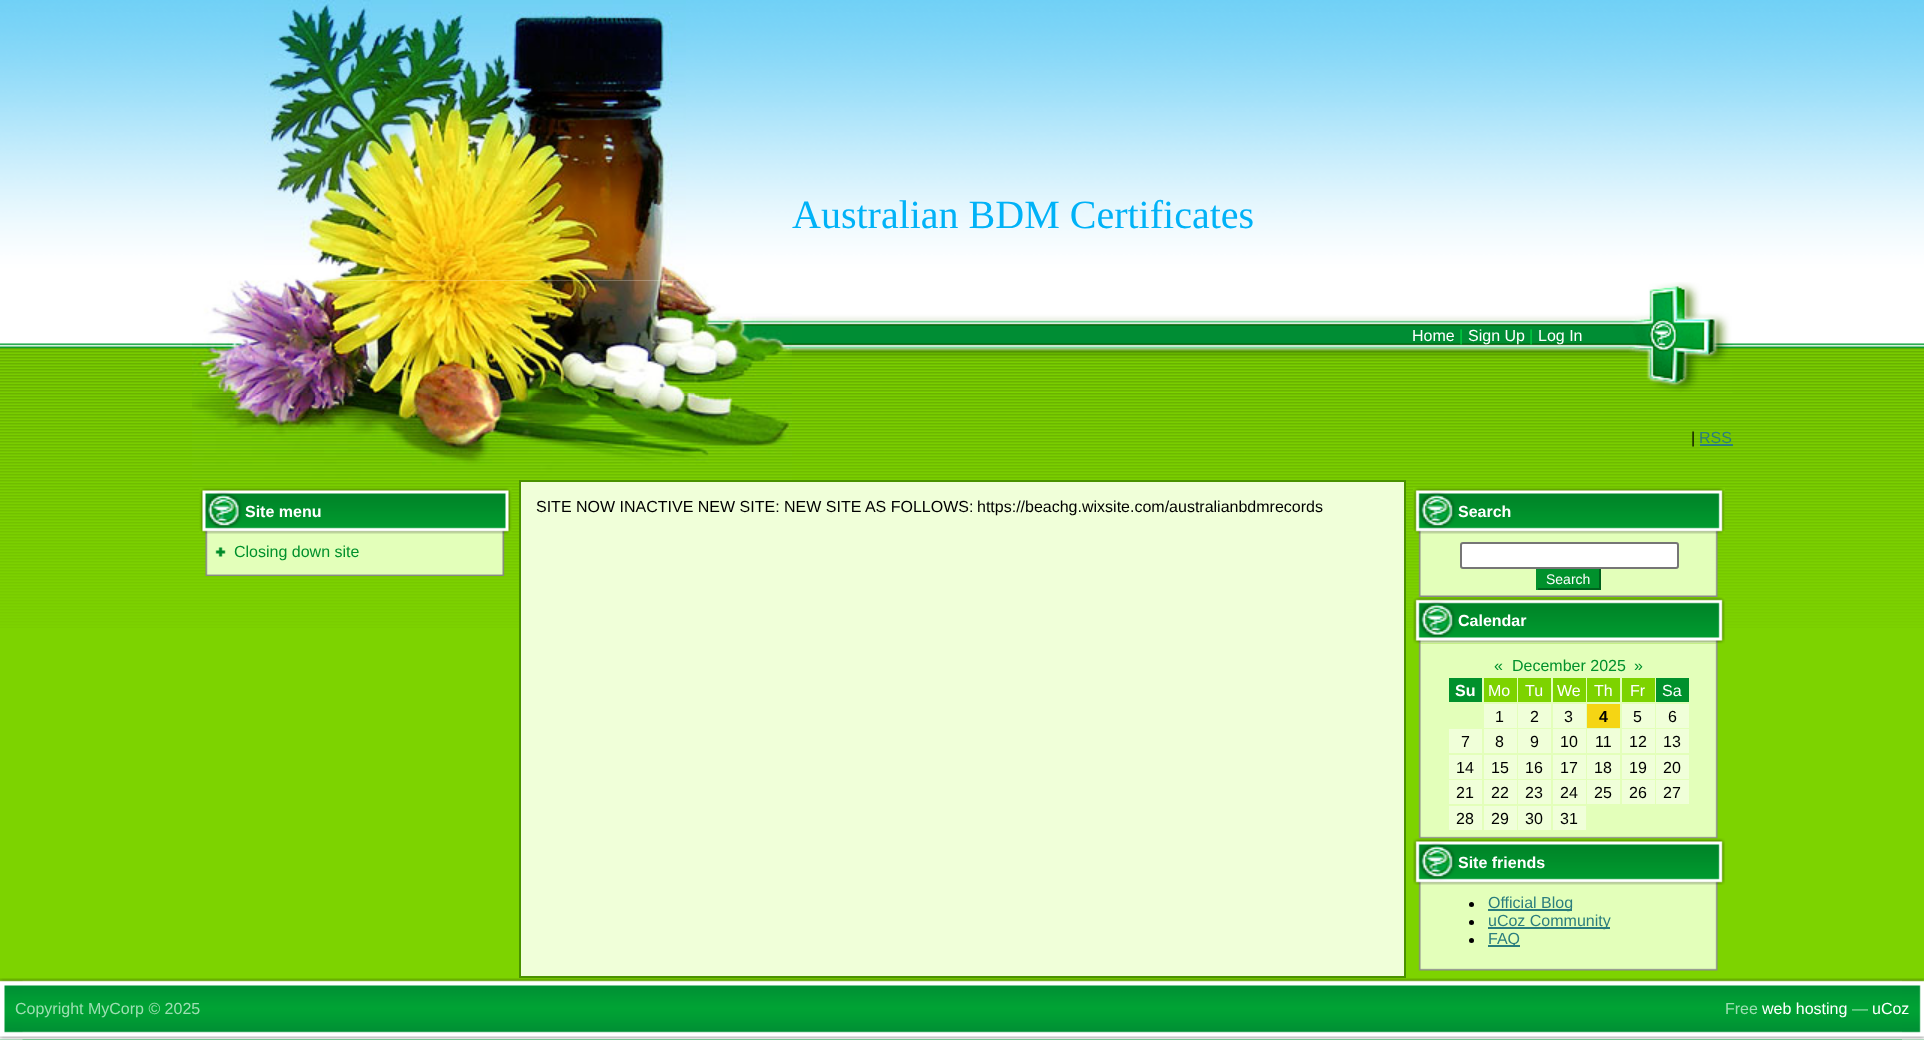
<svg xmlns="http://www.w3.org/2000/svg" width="1924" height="1063">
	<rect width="100%" height="100%" fill="#FFFFFF" />
	<rect x="0" y="628" width="1924" height="350" fill="#7DD300" />
	<image x="0" y="0" width="1924" height="628" href="assets/img1.png" />
	<image x="264" y="0" width="422" height="281" href="assets/img2.png" />
	<text x="792" y="228" font-family="Liberation Serif" font-size="40" fill="#00B2F7">Australian BDM Certificates</text>
	<image x="192" y="280" width="600" height="113" href="assets/img3.png" />
	<image x="792" y="282" width="941" height="111" href="assets/img4.png" />
	<text x="1412" y="341" font-family="Liberation Sans" font-size="16" fill="#FFFFFF">Home</text>
	<text x="1459" y="341" font-family="Liberation Sans" font-size="16" fill="#00D341">|</text>
	<text x="1468" y="341" font-family="Liberation Sans" font-size="16" fill="#FFFFFF">Sign Up</text>
	<text x="1529" y="341" font-family="Liberation Sans" font-size="16" fill="#00D341">|</text>
	<text x="1538" y="341" font-family="Liberation Sans" font-size="16" fill="#FFFFFF">Log In</text>
	<image x="192" y="393" width="600" height="87" href="assets/img5.png" />
	<text x="1691" y="443" font-family="Liberation Sans" font-size="16" fill="#000000">|</text>
	<text x="1699" y="443" font-family="Liberation Sans" font-size="16" fill="#2B7E7E">RSS</text>
	<rect x="1700" y="444" width="33" height="2" fill="#2B7E7E" />
	<image x="199" y="487" width="313" height="47" href="assets/img6.png" />
	<text x="245" y="517" font-family="Liberation Sans" font-size="16" font-weight="700" fill="#FFFFFF">Site menu</text>
	<image x="205" y="534" width="300" height="42" href="assets/img7.png" />
	<image x="215" y="547" width="11" height="10" href="assets/img8.png" />
	<text x="234" y="557" font-family="Liberation Sans" font-size="16" fill="#00912C">Closing down site</text>
	<rect x="520" y="481" width="885" height="496" fill="#F0FFD9" stroke="#499200" stroke-width="2" />
	<g font-family="Liberation Sans" font-size="16" fill="#000000">
		<text x="536" y="512">SITE NOW INACTIVE NEW SITE: NEW SITE AS FOLLOWS:</text>
		<text x="977" y="512">https://beachg.wixsite.com/australianbdmrecords</text>
	</g>
	<image x="1413" y="487" width="312" height="47" href="assets/img9.png" />
	<text x="1458" y="517" font-family="Liberation Sans" font-size="16" font-weight="700" fill="#FFFFFF">Search</text>
	<image x="1418" y="534" width="300" height="63" href="assets/img10.png" />
	<rect x="1461" y="543" width="217" height="25" rx="2" fill="#FFFFFF" stroke="#767676" stroke-width="2" />
	<rect x="1538" y="569" width="61" height="19" fill="#00912C" />
	<rect x="1599" y="569" width="2" height="21" fill="#00611D" />
	<rect x="1536" y="588" width="65" height="2" fill="#00611D" />
	<rect x="1536" y="569" width="2" height="21" fill="#00912C" />
	<text x="1546" y="584" font-family="Liberation Sans" font-size="14" fill="#FFFFFF">Search</text>
	<image x="1413" y="597" width="312" height="47" href="assets/img11.png" />
	<text x="1458" y="626" font-family="Liberation Sans" font-size="16" font-weight="700" fill="#FFFFFF">Calendar</text>
	<image x="1418" y="643" width="300" height="196" href="assets/img12.png" />
	<g font-family="Liberation Sans" font-size="16" fill="#00912C">
		<text x="1494" y="671">«</text>
		<text x="1512" y="671">December 2025</text>
		<text x="1634" y="671">»</text>
	</g>
	<rect x="1449" y="678" width="33" height="24" fill="#00912C" />
	<text x="1455" y="696" font-family="Liberation Sans" font-size="16" font-weight="700" fill="#FFFFFF">Su</text>
	<rect x="1484" y="678" width="33" height="24" fill="#7DD300" />
	<text x="1488" y="696" font-family="Liberation Sans" font-size="16" fill="#FFFFFF">Mo</text>
	<rect x="1518" y="678" width="33" height="24" fill="#7DD300" />
	<text x="1525" y="696" font-family="Liberation Sans" font-size="16" fill="#FFFFFF">Tu</text>
	<rect x="1553" y="678" width="33" height="24" fill="#7DD300" />
	<text x="1557" y="696" font-family="Liberation Sans" font-size="16" fill="#FFFFFF">We</text>
	<rect x="1587" y="678" width="33" height="24" fill="#7DD300" />
	<text x="1594" y="696" font-family="Liberation Sans" font-size="16" fill="#FFFFFF">Th</text>
	<rect x="1622" y="678" width="33" height="24" fill="#7DD300" />
	<text x="1630" y="696" font-family="Liberation Sans" font-size="16" fill="#FFFFFF">Fr</text>
	<rect x="1656" y="678" width="33" height="24" fill="#00912C" />
	<text x="1662" y="696" font-family="Liberation Sans" font-size="16" fill="#FFFFFF">Sa</text>
	<rect x="1484" y="704" width="33" height="24" fill="#F0FFD9" />
	<text x="1495" y="722" font-family="Liberation Sans" font-size="16" fill="#000000">1</text>
	<rect x="1518" y="704" width="33" height="24" fill="#F0FFD9" />
	<text x="1530" y="722" font-family="Liberation Sans" font-size="16" fill="#000000">2</text>
	<rect x="1553" y="704" width="33" height="24" fill="#F0FFD9" />
	<text x="1564" y="722" font-family="Liberation Sans" font-size="16" fill="#000000">3</text>
	<rect x="1587" y="704" width="33" height="24" fill="#F5D514" />
	<text x="1599" y="722" font-family="Liberation Sans" font-size="16" font-weight="700" fill="#000000">4</text>
	<rect x="1622" y="704" width="33" height="24" fill="#F0FFD9" />
	<text x="1633" y="722" font-family="Liberation Sans" font-size="16" fill="#000000">5</text>
	<rect x="1656" y="704" width="33" height="24" fill="#F0FFD9" />
	<text x="1668" y="722" font-family="Liberation Sans" font-size="16" fill="#000000">6</text>
	<rect x="1449" y="729" width="33" height="24" fill="#F0FFD9" />
	<text x="1461" y="747" font-family="Liberation Sans" font-size="16" fill="#000000">7</text>
	<rect x="1484" y="729" width="33" height="24" fill="#F0FFD9" />
	<text x="1495" y="747" font-family="Liberation Sans" font-size="16" fill="#000000">8</text>
	<rect x="1518" y="729" width="33" height="24" fill="#F0FFD9" />
	<text x="1530" y="747" font-family="Liberation Sans" font-size="16" fill="#000000">9</text>
	<rect x="1553" y="729" width="33" height="24" fill="#F0FFD9" />
	<text x="1560" y="747" font-family="Liberation Sans" font-size="16" fill="#000000">10</text>
	<rect x="1587" y="729" width="33" height="24" fill="#F0FFD9" />
	<text x="1595" y="747" font-family="Liberation Sans" font-size="16" fill="#000000">11</text>
	<rect x="1622" y="729" width="33" height="24" fill="#F0FFD9" />
	<text x="1629" y="747" font-family="Liberation Sans" font-size="16" fill="#000000">12</text>
	<rect x="1656" y="729" width="33" height="24" fill="#F0FFD9" />
	<text x="1663" y="747" font-family="Liberation Sans" font-size="16" fill="#000000">13</text>
	<rect x="1449" y="755" width="33" height="24" fill="#F0FFD9" />
	<text x="1456" y="773" font-family="Liberation Sans" font-size="16" fill="#000000">14</text>
	<rect x="1484" y="755" width="33" height="24" fill="#F0FFD9" />
	<text x="1491" y="773" font-family="Liberation Sans" font-size="16" fill="#000000">15</text>
	<rect x="1518" y="755" width="33" height="24" fill="#F0FFD9" />
	<text x="1525" y="773" font-family="Liberation Sans" font-size="16" fill="#000000">16</text>
	<rect x="1553" y="755" width="33" height="24" fill="#F0FFD9" />
	<text x="1560" y="773" font-family="Liberation Sans" font-size="16" fill="#000000">17</text>
	<rect x="1587" y="755" width="33" height="24" fill="#F0FFD9" />
	<text x="1594" y="773" font-family="Liberation Sans" font-size="16" fill="#000000">18</text>
	<rect x="1622" y="755" width="33" height="24" fill="#F0FFD9" />
	<text x="1629" y="773" font-family="Liberation Sans" font-size="16" fill="#000000">19</text>
	<rect x="1656" y="755" width="33" height="24" fill="#F0FFD9" />
	<text x="1663" y="773" font-family="Liberation Sans" font-size="16" fill="#000000">20</text>
	<rect x="1449" y="780" width="33" height="24" fill="#F0FFD9" />
	<text x="1456" y="798" font-family="Liberation Sans" font-size="16" fill="#000000">21</text>
	<rect x="1484" y="780" width="33" height="24" fill="#F0FFD9" />
	<text x="1491" y="798" font-family="Liberation Sans" font-size="16" fill="#000000">22</text>
	<rect x="1518" y="780" width="33" height="24" fill="#F0FFD9" />
	<text x="1525" y="798" font-family="Liberation Sans" font-size="16" fill="#000000">23</text>
	<rect x="1553" y="780" width="33" height="24" fill="#F0FFD9" />
	<text x="1560" y="798" font-family="Liberation Sans" font-size="16" fill="#000000">24</text>
	<rect x="1587" y="780" width="33" height="24" fill="#F0FFD9" />
	<text x="1594" y="798" font-family="Liberation Sans" font-size="16" fill="#000000">25</text>
	<rect x="1622" y="780" width="33" height="24" fill="#F0FFD9" />
	<text x="1629" y="798" font-family="Liberation Sans" font-size="16" fill="#000000">26</text>
	<rect x="1656" y="780" width="33" height="24" fill="#F0FFD9" />
	<text x="1663" y="798" font-family="Liberation Sans" font-size="16" fill="#000000">27</text>
	<rect x="1449" y="806" width="33" height="24" fill="#F0FFD9" />
	<text x="1456" y="824" font-family="Liberation Sans" font-size="16" fill="#000000">28</text>
	<rect x="1484" y="806" width="33" height="24" fill="#F0FFD9" />
	<text x="1491" y="824" font-family="Liberation Sans" font-size="16" fill="#000000">29</text>
	<rect x="1518" y="806" width="33" height="24" fill="#F0FFD9" />
	<text x="1525" y="824" font-family="Liberation Sans" font-size="16" fill="#000000">30</text>
	<rect x="1553" y="806" width="33" height="24" fill="#F0FFD9" />
	<text x="1560" y="824" font-family="Liberation Sans" font-size="16" fill="#000000">31</text>
	<image x="1413" y="838" width="312" height="47" href="assets/img13.png" />
	<text x="1458" y="868" font-family="Liberation Sans" font-size="16" font-weight="700" fill="#FFFFFF">Site friends</text>
	<image x="1418" y="885" width="300" height="86" href="assets/img14.png" />
	<circle cx="1471.5" cy="904.5" r="2.5" fill="#000000" />
	<rect x="1488" y="909" width="84" height="2" fill="#2B7E7E" />
	<text x="1488" y="908" font-family="Liberation Sans" font-size="16" fill="#2B7E7E">Official Blog</text>
	<circle cx="1471.5" cy="922.5" r="2.5" fill="#000000" />
	<rect x="1488" y="927" width="122" height="2" fill="#2B7E7E" />
	<text x="1488" y="926" font-family="Liberation Sans" font-size="16" fill="#2B7E7E">uCoz Community</text>
	<circle cx="1471.5" cy="940.5" r="2.5" fill="#000000" />
	<rect x="1488" y="945" width="32" height="2" fill="#2B7E7E" />
	<text x="1488" y="944" font-family="Liberation Sans" font-size="16" fill="#2B7E7E">FAQ</text>
	<rect x="0" y="1039" width="1924" height="1" fill="#00A034" />
	<image x="0" y="978" width="1924" height="62" href="assets/img15.png" />
	<image x="0" y="978" width="23" height="62" href="assets/img16.png" />
	<text x="15" y="1014" font-family="Liberation Sans" font-size="16" fill="#9EDEB3">Copyright MyCorp © 2025</text>
	<image x="1902" y="979" width="22" height="61" href="assets/img17.png" />
	<text x="1725" y="1014" font-family="Liberation Sans" font-size="16" fill="#9EDEB3">Free</text>
	<text x="1762" y="1014" font-family="Liberation Sans" font-size="16" fill="#FFFFFF">web hosting</text>
	<text x="1852" y="1014" font-family="Liberation Sans" font-size="16" fill="#9EDEB3">—</text>
	<text x="1872" y="1014" font-family="Liberation Sans" font-size="16" fill="#FFFFFF">uCoz</text>
</svg>
